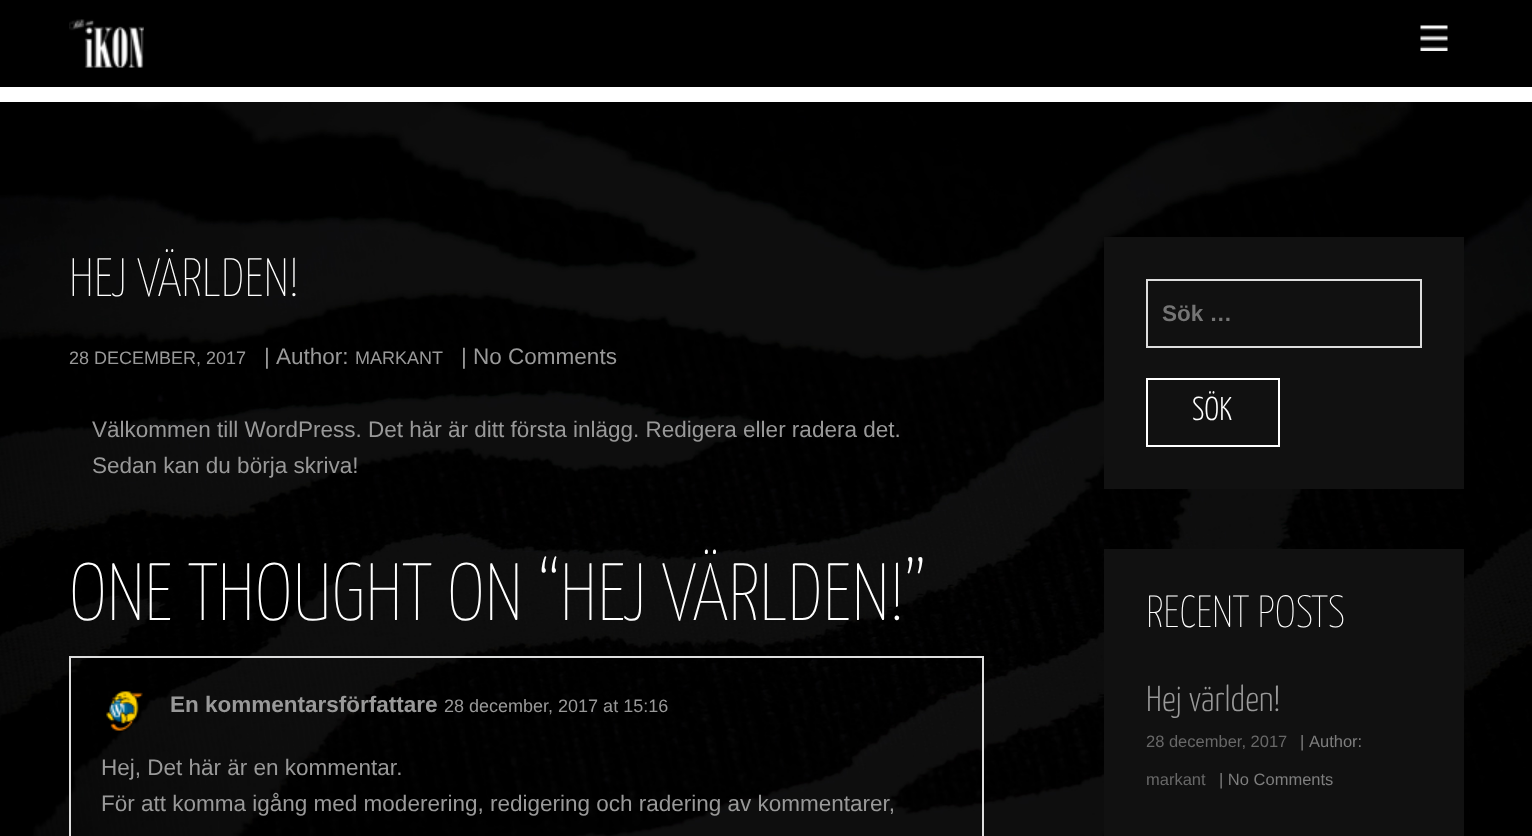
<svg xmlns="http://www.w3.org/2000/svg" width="1532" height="836">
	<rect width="100%" height="100%" fill="#FFFFFF" />
	<image x="0" y="102" width="1532" height="734" href="assets/img1.png" />
	<rect x="0" y="0" width="1532" height="87" fill="#000000" />
	<image x="69" y="19" width="75" height="49" href="assets/img2.png" />
	<image x="1420" y="25" width="28" height="26" href="assets/img3.png" />
	<text x="69" y="296" font-family="Yanone Kaffeesatz" font-size="54" font-weight="200" fill="#FFFFFF">HEJ VÄRLDEN!</text>
	<text x="69" y="364" font-family="Liberation Sans" font-size="18" fill="#999999">28 DECEMBER, 2017</text>
	<g font-family="Liberation Sans" font-size="22.5" fill="#999999">
		<text x="264" y="364">|</text>
		<text x="276" y="364">Author:</text>
	</g>
	<text x="355" y="364" font-family="Liberation Sans" font-size="18" fill="#999999">MARKANT</text>
	<g font-family="Liberation Sans" font-size="22.5" fill="#999999">
		<text x="461" y="364">| No Comments</text>
		<text x="92" y="437">Välkommen till WordPress. Det här är ditt första inlägg. Redigera eller radera det.</text>
		<text x="92" y="473">Sedan kan du börja skriva!</text>
	</g>
	<text x="69" y="620" font-family="Yanone Kaffeesatz" font-size="81" font-weight="200" fill="#FFFFFF">ONE THOUGHT ON “HEJ VÄRLDEN!”</text>
	<rect x="70" y="657" width="913" height="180" fill="none" stroke="#DDDDDD" stroke-width="2" />
	<image x="106" y="691" width="37" height="41" href="assets/img4.png" />
	<text x="170" y="712" font-family="Liberation Sans" font-size="22.5" font-weight="700" fill="#999999">En kommentarsförfattare</text>
	<text x="444" y="712" font-family="Liberation Sans" font-size="18" fill="#999999">28 december, 2017 at 15:16</text>
	<g font-family="Liberation Sans" font-size="22.5" fill="#999999">
		<text x="101" y="775">Hej, Det här är en kommentar.</text>
		<text x="101" y="811">För att komma igång med moderering, redigering och radering av kommentarer,</text>
	</g>
	<rect x="1104" y="237" width="360" height="252" fill="#111111" />
	<rect x="1147" y="280" width="274" height="67" fill="none" stroke="#DDDDDD" stroke-width="2" />
	<text x="1162" y="321" font-family="Liberation Sans" font-size="22.5" font-weight="700" fill="#757575">Sök …</text>
	<rect x="1147" y="379" width="132" height="67" fill="none" stroke="#FFFFFF" stroke-width="2" />
	<text x="1192" y="420" font-family="Yanone Kaffeesatz" font-size="33" font-weight="300" fill="#FFFFFF">SÖK</text>
	<rect x="1104" y="549" width="360" height="287" fill="#111111" />
	<text x="1146" y="627" font-family="Yanone Kaffeesatz" font-size="45" font-weight="200" fill="#FFFFFF">RECENT POSTS</text>
	<text x="1146" y="711" font-family="Yanone Kaffeesatz" font-size="36" font-weight="300" fill="#999999">Hej världen!</text>
	<text x="1146" y="747" font-family="Liberation Sans" font-size="16.5" fill="#686868">28 december, 2017</text>
	<g font-family="Liberation Sans" font-size="16.5" fill="#7E7E7E">
		<text x="1300" y="747">|</text>
		<text x="1309" y="747">Author:</text>
	</g>
	<text x="1146" y="785" font-family="Liberation Sans" font-size="16.5" fill="#686868">markant</text>
	<text x="1219" y="785" font-family="Liberation Sans" font-size="16.5" fill="#7E7E7E">| No Comments</text>
</svg>
